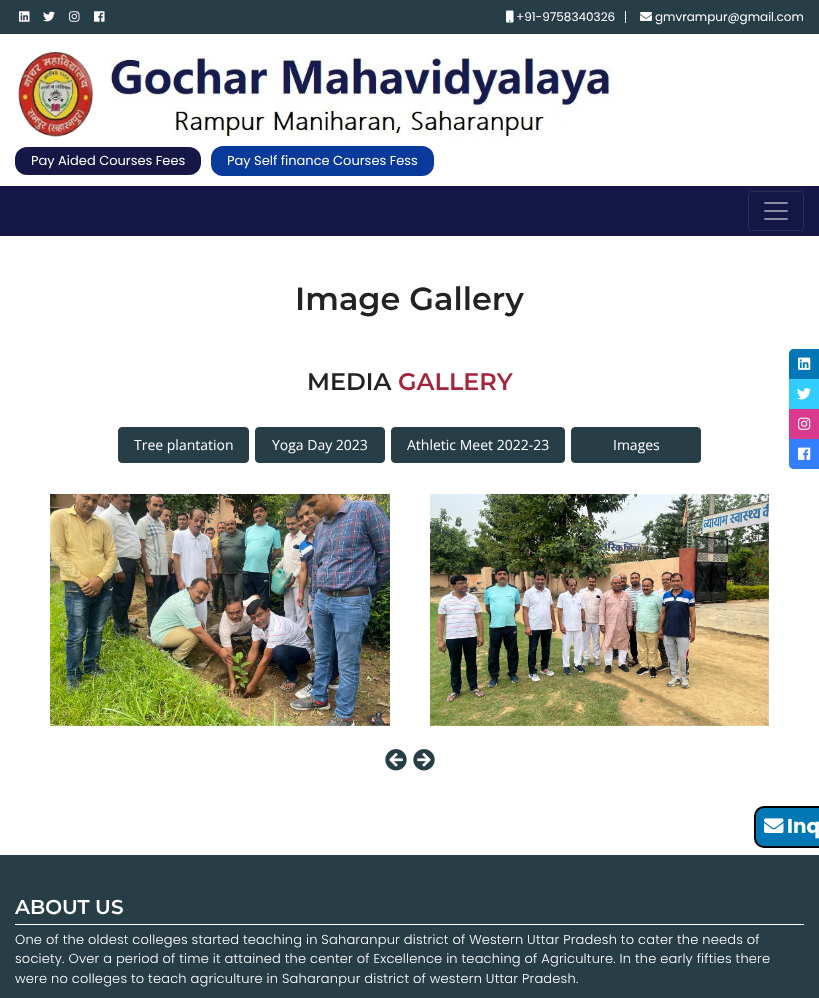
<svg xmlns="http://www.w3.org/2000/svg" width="819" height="998">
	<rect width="100%" height="100%" fill="#FFFFFF" />
	<rect x="0" y="0" width="819" height="34" fill="#273E47" />
	<image x="19" y="11" width="11" height="11" href="assets/img1.png" />
	<image x="43" y="11" width="12" height="11" href="assets/img2.png" />
	<image x="69" y="11" width="11" height="11" href="assets/img3.png" />
	<image x="94" y="11" width="11" height="11" href="assets/img4.png" />
	<rect x="625" y="11" width="1" height="12" fill="#FFFFFF" />
	<image x="506" y="10" width="8" height="13" href="assets/img5.png" />
	<text x="516" y="21" font-family="Poppins" font-size="12" fill="#FFFFFF">+91-9758340326</text>
	<image x="640" y="12" width="12" height="9" href="assets/img6.png" />
	<text x="655" y="21" font-family="Poppins" font-size="12" fill="#FFFFFF">gmvrampur@gmail.com</text>
	<image x="18" y="51" width="75" height="86" href="assets/img7.png" />
	<image x="110" y="55" width="502" height="83" href="assets/img8.png" />
	<rect x="15" y="147" width="186" height="28" rx="12" fill="#151847" />
	<text x="31" y="165" font-family="Poppins" font-size="13" fill="#FFFFFF">Pay Aided Courses Fees</text>
	<rect x="211" y="146" width="223" height="30" rx="12" fill="#083A9B" />
	<text x="227" y="165" font-family="Poppins" font-size="13" fill="#FFFFFF">Pay Self finance Courses Fess</text>
	<rect x="0" y="186" width="819" height="50" fill="#151847" />
	<rect x="748.5" y="191.5" width="55" height="39" rx="3.5" fill="none" stroke="#2C2F59" />
	<image x="764" y="202" width="24" height="18" href="assets/img9.png" />
	<text x="295" y="310" font-family="Montserrat" font-size="32" font-weight="600" fill="#222222">Image Gallery</text>
	<text x="307" y="390" font-family="Montserrat" font-size="24" font-weight="600" fill="#222222">MEDIA</text>
	<text x="398" y="390" font-family="Montserrat" font-size="24" font-weight="600" fill="#A4243B">GALLERY</text>
	<rect x="118.5" y="427.5" width="130" height="35" rx="3.5" fill="#273E47" stroke="#273E47" />
	<text x="134" y="450" font-family="Open Sans" font-size="14" fill="#FFFFFF">Tree plantation</text>
	<rect x="255.5" y="427.5" width="129" height="35" rx="3.5" fill="#273E47" stroke="#273E47" />
	<text x="272" y="450" font-family="Open Sans" font-size="14" fill="#FFFFFF">Yoga Day 2023</text>
	<rect x="391.5" y="427.5" width="173" height="35" rx="3.5" fill="#273E47" stroke="#273E47" />
	<text x="407" y="450" font-family="Open Sans" font-size="14" fill="#FFFFFF">Athletic Meet 2022-23</text>
	<rect x="571.5" y="427.5" width="129" height="35" rx="3.5" fill="#273E47" stroke="#273E47" />
	<text x="613" y="450" font-family="Open Sans" font-size="14" fill="#FFFFFF">Images</text>
	<image x="50" y="494" width="340" height="232" href="assets/img10.png" />
	<image x="430" y="494" width="339" height="232" href="assets/img11.png" />
	<image x="385" y="749" width="22" height="22" href="assets/img12.png" />
	<image x="413" y="749" width="22" height="22" href="assets/img13.png" />
	<path d="M794 349H819V379H789V354C789 351 791 349 794 349Z" fill="#0277B5" />
	<image x="798" y="357" width="13" height="13" href="assets/img14.png" />
	<rect x="789" y="379" width="30" height="30" fill="#33CCFF" />
	<image x="797" y="388" width="14" height="12" href="assets/img15.png" />
	<rect x="789" y="409" width="30" height="30" fill="#DA3A8D" />
	<image x="798" y="417" width="13" height="13" href="assets/img16.png" />
	<path d="M789 439H819V469H794C791 469 789 467 789 464Z" fill="#337FFF" />
	<image x="798" y="447" width="13" height="13" href="assets/img17.png" />
	<path d="M764 807H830V847H764C759 847 755 843 755 838V816C755 811 759 807 764 807Z" fill="#0277B5" stroke="#000000" stroke-width="2" />
	<image x="764" y="818" width="20" height="15" href="assets/img18.png" />
	<text x="787" y="833" font-family="Poppins" font-size="20" font-weight="700" fill="#FFFFFF">Inq</text>
	<rect x="0" y="855" width="819" height="143" fill="#273E47" />
	<rect x="15" y="924" width="789" height="1" fill="#FFFFFF" />
	<text x="15" y="914" font-family="Montserrat" font-size="20" font-weight="600" fill="#FFFFFF">ABOUT US</text>
	<g font-family="Poppins" font-size="13" font-weight="300" letter-spacing="0.2" fill="#FFFFFF">
		<text x="15" y="944">One of the oldest colleges started teaching in Saharanpur district of Western Uttar Pradesh to cater the needs of</text>
		<text x="15" y="963">society. Over a period of time it attained the center of Excellence in teaching of Agriculture. In the early fifties there</text>
		<text x="15" y="983">were no colleges to teach agriculture in Saharanpur district of western Uttar Pradesh.</text>
	</g>
</svg>
